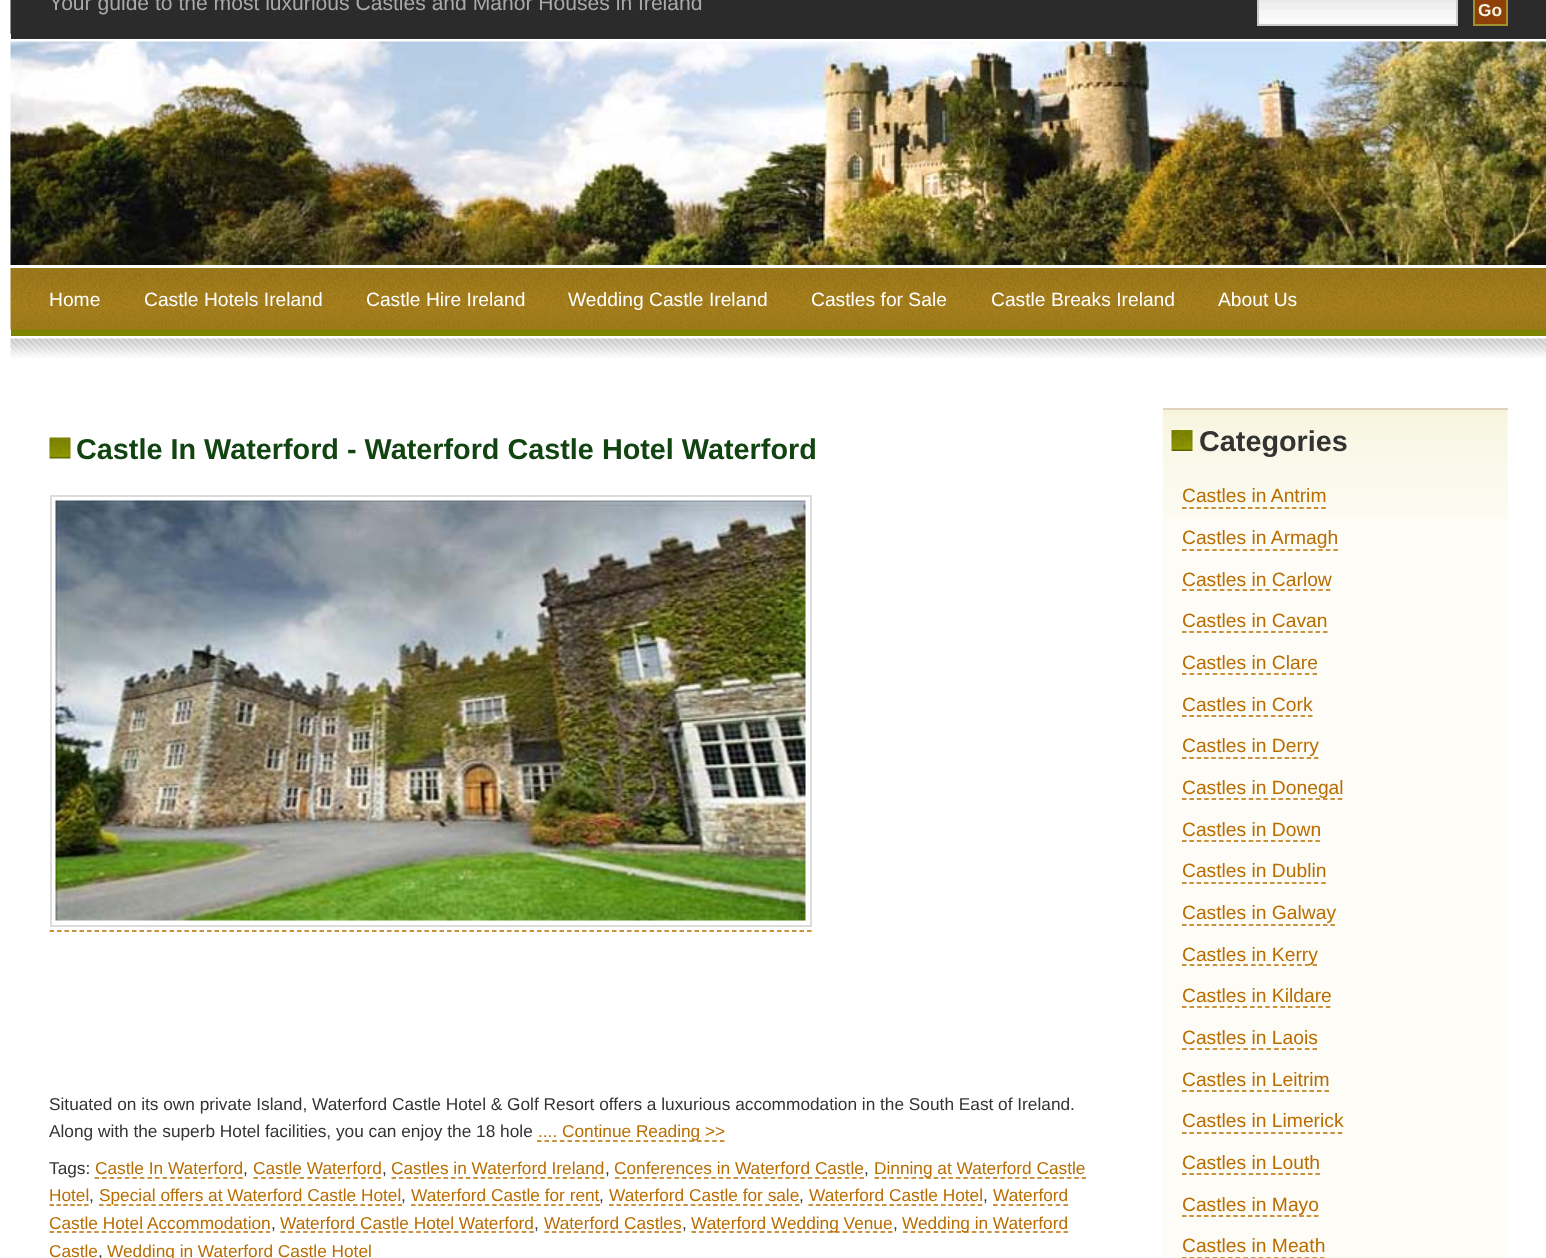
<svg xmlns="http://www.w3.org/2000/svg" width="1546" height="1258">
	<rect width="100%" height="100%" fill="#FFFFFF" />
	<rect x="11" y="0" width="1535" height="39" fill="#2B2B2B" />
	<rect x="10" y="0" width="1" height="34" fill="#959595" />
	<text x="49" y="10" font-family="Liberation Sans" font-size="21.1" fill="#AAAAAA">Your guide to the most luxurious Castles and Manor Houses in Ireland</text>
	<rect x="1259" y="20" width="197" height="4" fill="#F9F9F9" />
	<image x="1259" y="0" width="197" height="20" href="assets/img1.png" />
	<rect x="1258" y="-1" width="199" height="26" fill="none" stroke="#CCCCCC" stroke-width="2" />
	<rect x="1474" y="-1" width="33" height="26" fill="#8F4008" stroke="#9F9030" stroke-width="2" />
	<text x="1478" y="16" font-family="Liberation Sans" font-size="17.28" font-weight="700" fill="#F2F3DE">Go</text>
	<image x="10" y="41" width="1536" height="224" href="assets/img2.png" />
	<rect x="11" y="329" width="1535" height="7" fill="#7F8400" />
	<image x="10" y="268" width="1536" height="62" href="assets/img3.png" />
	<g font-family="Liberation Sans" font-size="19.25" fill="#FFFFFF">
		<text x="49" y="306">Home</text>
		<text x="144" y="306">Castle Hotels Ireland</text>
		<text x="366" y="306">Castle Hire Ireland</text>
		<text x="568" y="306">Wedding Castle Ireland</text>
		<text x="811" y="306">Castles for Sale</text>
		<text x="991" y="306">Castle Breaks Ireland</text>
		<text x="1218" y="306">About Us</text>
	</g>
	<image x="10" y="338" width="1536" height="20" href="assets/img4.png" />
	<image x="49" y="437" width="22" height="22" href="assets/img5.png" />
	<text x="76" y="459" font-family="Liberation Sans" font-size="28.8" font-weight="700" fill="#114411">Castle In Waterford - Waterford Castle Hotel Waterford</text>
	<rect x="51" y="496" width="760" height="430" fill="none" stroke="#DCDCDC" stroke-width="2" />
	<image x="55" y="500" width="751" height="421" href="assets/img6.png" />
	<path d="M49.5 931H811.5" fill="none" stroke="#B96D00" stroke-width="1.5" stroke-dasharray="4.5 3" />
	<g font-family="Liberation Sans" font-size="17.28" fill="#333333">
		<text x="49" y="1110">Situated on its own private Island, Waterford Castle Hotel &amp; Golf Resort offers a luxurious accommodation in the South East of Ireland.</text>
		<text x="49" y="1137">Along with the superb Hotel facilities, you can enjoy the 18 hole</text>
	</g>
	<path d="M537 1141H724.5" fill="none" stroke="#B96D00" stroke-width="1.5" stroke-dasharray="4.5 3.12" />
	<text x="538" y="1137" font-family="Liberation Sans" font-size="17.28" fill="#B96D00">.... Continue Reading &gt;&gt;</text>
	<text x="49" y="1174" font-family="Liberation Sans" font-size="17.28" fill="#333333">Tags:</text>
	<text x="95" y="1174" font-family="Liberation Sans" font-size="17.28" fill="#B96D00">Castle In Waterford</text>
	<path d="M94.5 1178H243" fill="none" stroke="#B96D00" stroke-width="1.5" stroke-dasharray="4.5 3.07" />
	<text x="243" y="1174" font-family="Liberation Sans" font-size="17.28" fill="#333333">,</text>
	<text x="253" y="1174" font-family="Liberation Sans" font-size="17.28" fill="#B96D00">Castle Waterford</text>
	<path d="M253.5 1178H381" fill="none" stroke="#B96D00" stroke-width="1.5" stroke-dasharray="4.5 3.18" />
	<text x="382" y="1174" font-family="Liberation Sans" font-size="17.28" fill="#333333">,</text>
	<text x="391" y="1174" font-family="Liberation Sans" font-size="17.28" fill="#B96D00">Castles in Waterford Ireland</text>
	<path d="M391.5 1178H604.5" fill="none" stroke="#B96D00" stroke-width="1.5" stroke-dasharray="4.5 2.94" />
	<text x="605" y="1174" font-family="Liberation Sans" font-size="17.28" fill="#333333">,</text>
	<text x="614" y="1174" font-family="Liberation Sans" font-size="17.28" fill="#B96D00">Conferences in Waterford Castle</text>
	<path d="M615 1178H864" fill="none" stroke="#B96D00" stroke-width="1.5" stroke-dasharray="4.5 2.91" />
	<text x="864" y="1174" font-family="Liberation Sans" font-size="17.28" fill="#333333">,</text>
	<path d="M874.5 1178H1086" fill="none" stroke="#B96D00" stroke-width="1.5" stroke-dasharray="4.5 2.9" />
	<g font-family="Liberation Sans" font-size="17.28" fill="#B96D00">
		<text x="874" y="1174">Dinning at Waterford Castle</text>
		<text x="49" y="1201">Hotel</text>
	</g>
	<path d="M49.5 1205H88.5" fill="none" stroke="#B96D00" stroke-width="1.5" stroke-dasharray="4.5 2.4" />
	<text x="89" y="1201" font-family="Liberation Sans" font-size="17.28" fill="#333333">,</text>
	<path d="M99 1205H402" fill="none" stroke="#B96D00" stroke-width="1.5" stroke-dasharray="4.5 2.97" />
	<text x="99" y="1201" font-family="Liberation Sans" font-size="17.28" fill="#B96D00">Special offers at Waterford Castle Hotel</text>
	<text x="401" y="1201" font-family="Liberation Sans" font-size="17.28" fill="#333333">,</text>
	<text x="411" y="1201" font-family="Liberation Sans" font-size="17.28" fill="#B96D00">Waterford Castle for rent</text>
	<path d="M411 1205H600" fill="none" stroke="#B96D00" stroke-width="1.5" stroke-dasharray="4.5 2.88" />
	<text x="599" y="1201" font-family="Liberation Sans" font-size="17.28" fill="#333333">,</text>
	<text x="609" y="1201" font-family="Liberation Sans" font-size="17.28" fill="#B96D00">Waterford Castle for sale</text>
	<path d="M609 1205H799.5" fill="none" stroke="#B96D00" stroke-width="1.5" stroke-dasharray="4.5 2.94" />
	<text x="799" y="1201" font-family="Liberation Sans" font-size="17.28" fill="#333333">,</text>
	<text x="809" y="1201" font-family="Liberation Sans" font-size="17.28" fill="#B96D00">Waterford Castle Hotel</text>
	<path d="M808.5 1205H982.5" fill="none" stroke="#B96D00" stroke-width="1.5" stroke-dasharray="4.5 2.86" />
	<text x="983" y="1201" font-family="Liberation Sans" font-size="17.28" fill="#333333">,</text>
	<text x="993" y="1201" font-family="Liberation Sans" font-size="17.28" fill="#B96D00">Waterford</text>
	<path d="M993 1205H1068" fill="none" stroke="#B96D00" stroke-width="1.5" stroke-dasharray="4.5 3.33" />
	<text x="49" y="1229" font-family="Liberation Sans" font-size="17.28" fill="#B96D00">Castle Hotel Accommodation</text>
	<path d="M49.5 1232H270" fill="none" stroke="#B96D00" stroke-width="1.5" stroke-dasharray="4.5 2.96" />
	<text x="271" y="1229" font-family="Liberation Sans" font-size="17.28" fill="#333333">,</text>
	<text x="280" y="1229" font-family="Liberation Sans" font-size="17.28" fill="#B96D00">Waterford Castle Hotel Waterford</text>
	<path d="M280.5 1232H534" fill="none" stroke="#B96D00" stroke-width="1.5" stroke-dasharray="4.5 3.04" />
	<text x="534" y="1229" font-family="Liberation Sans" font-size="17.28" fill="#333333">,</text>
	<text x="544" y="1229" font-family="Liberation Sans" font-size="17.28" fill="#B96D00">Waterford Castles</text>
	<path d="M544.5 1232H681" fill="none" stroke="#B96D00" stroke-width="1.5" stroke-dasharray="4.5 2.83" />
	<text x="682" y="1229" font-family="Liberation Sans" font-size="17.28" fill="#333333">,</text>
	<path d="M691.5 1232H892.5" fill="none" stroke="#B96D00" stroke-width="1.5" stroke-dasharray="4.5 3.06" />
	<text x="691" y="1229" font-family="Liberation Sans" font-size="17.28" fill="#B96D00">Waterford Wedding Venue</text>
	<text x="893" y="1229" font-family="Liberation Sans" font-size="17.28" fill="#333333">,</text>
	<path d="M903 1232H1068" fill="none" stroke="#B96D00" stroke-width="1.5" stroke-dasharray="4.5 3.15" />
	<g font-family="Liberation Sans" font-size="17.28" fill="#B96D00">
		<text x="902" y="1229">Wedding in Waterford</text>
		<text x="49" y="1257">Castle</text>
	</g>
	<text x="98" y="1257" font-family="Liberation Sans" font-size="17.28" fill="#333333">,</text>
	<text x="107" y="1257" font-family="Liberation Sans" font-size="17.28" fill="#B96D00">Wedding in Waterford Castle Hotel</text>
	<rect x="1163" y="410" width="345" height="848" fill="#FDFCF6" />
	<image x="1162" y="409" width="346" height="109" href="assets/img7.png" />
	<rect x="1163" y="408" width="345" height="2" fill="#E1D2BD" />
	<image x="1171" y="430" width="22" height="21" href="assets/img8.png" />
	<text x="1199" y="451" font-family="Liberation Sans" font-size="28.8" font-weight="700" fill="#333333">Categories</text>
	<text x="1182" y="502" font-family="Liberation Sans" font-size="19.25" fill="#B96D00">Castles in Antrim</text>
	<path d="M1182 508H1326" fill="none" stroke="#B96D00" stroke-width="1.5" stroke-dasharray="4.5 2.83" />
	<text x="1182" y="544" font-family="Liberation Sans" font-size="19.25" fill="#B96D00">Castles in Armagh</text>
	<path d="M1182 550H1338" fill="none" stroke="#B96D00" stroke-width="1.5" stroke-dasharray="4.5 3.07" />
	<text x="1182" y="586" font-family="Liberation Sans" font-size="19.25" fill="#B96D00">Castles in Carlow</text>
	<path d="M1182 590H1330.5" fill="none" stroke="#B96D00" stroke-width="1.5" stroke-dasharray="4.5 3.07" />
	<text x="1182" y="627" font-family="Liberation Sans" font-size="19.25" fill="#B96D00">Castles in Cavan</text>
	<path d="M1182 632H1327.5" fill="none" stroke="#B96D00" stroke-width="1.5" stroke-dasharray="4.5 2.92" />
	<text x="1182" y="669" font-family="Liberation Sans" font-size="19.25" fill="#B96D00">Castles in Clare</text>
	<path d="M1182 674H1317" fill="none" stroke="#B96D00" stroke-width="1.5" stroke-dasharray="4.5 3.18" />
	<text x="1182" y="711" font-family="Liberation Sans" font-size="19.25" fill="#B96D00">Castles in Cork</text>
	<path d="M1182 716H1312.5" fill="none" stroke="#B96D00" stroke-width="1.5" stroke-dasharray="4.5 2.91" />
	<text x="1182" y="752" font-family="Liberation Sans" font-size="19.25" fill="#B96D00">Castles in Derry</text>
	<path d="M1182 758H1318.5" fill="none" stroke="#B96D00" stroke-width="1.5" stroke-dasharray="4.5 2.83" />
	<text x="1182" y="794" font-family="Liberation Sans" font-size="19.25" fill="#B96D00">Castles in Donegal</text>
	<path d="M1182 799H1342.5" fill="none" stroke="#B96D00" stroke-width="1.5" stroke-dasharray="4.5 2.92" />
	<text x="1182" y="836" font-family="Liberation Sans" font-size="19.25" fill="#B96D00">Castles in Down</text>
	<path d="M1182 841H1320" fill="none" stroke="#B96D00" stroke-width="1.5" stroke-dasharray="4.5 2.91" />
	<text x="1182" y="877" font-family="Liberation Sans" font-size="19.25" fill="#B96D00">Castles in Dublin</text>
	<path d="M1182 883H1326" fill="none" stroke="#B96D00" stroke-width="1.5" stroke-dasharray="4.5 2.83" />
	<text x="1182" y="919" font-family="Liberation Sans" font-size="19.25" fill="#B96D00">Castles in Galway</text>
	<path d="M1182 925H1335" fill="none" stroke="#B96D00" stroke-width="1.5" stroke-dasharray="4.5 2.92" />
	<path d="M1182 965H1317" fill="none" stroke="#B96D00" stroke-width="1.5" stroke-dasharray="4.5 3.18" />
	<g font-family="Liberation Sans" font-size="19.25" fill="#B96D00">
		<text x="1182" y="961">Castles in Kerry</text>
		<text x="1182" y="1002">Castles in Kildare</text>
	</g>
	<path d="M1182 1007H1330.5" fill="none" stroke="#B96D00" stroke-width="1.5" stroke-dasharray="4.5 3.07" />
	<text x="1182" y="1044" font-family="Liberation Sans" font-size="19.25" fill="#B96D00">Castles in Laois</text>
	<path d="M1182 1049H1317" fill="none" stroke="#B96D00" stroke-width="1.5" stroke-dasharray="4.5 3.18" />
	<text x="1182" y="1086" font-family="Liberation Sans" font-size="19.25" fill="#B96D00">Castles in Leitrim</text>
	<path d="M1182 1091H1329" fill="none" stroke="#B96D00" stroke-width="1.5" stroke-dasharray="4.5 3" />
	<text x="1182" y="1127" font-family="Liberation Sans" font-size="19.25" fill="#B96D00">Castles in Limerick</text>
	<path d="M1182 1133H1342.5" fill="none" stroke="#B96D00" stroke-width="1.5" stroke-dasharray="4.5 2.92" />
	<text x="1182" y="1169" font-family="Liberation Sans" font-size="19.25" fill="#B96D00">Castles in Louth</text>
	<path d="M1182 1174H1320" fill="none" stroke="#B96D00" stroke-width="1.5" stroke-dasharray="4.5 2.91" />
	<text x="1182" y="1211" font-family="Liberation Sans" font-size="19.25" fill="#B96D00">Castles in Mayo</text>
	<path d="M1182 1216H1318.5" fill="none" stroke="#B96D00" stroke-width="1.5" stroke-dasharray="4.5 2.83" />
	<text x="1182" y="1252" font-family="Liberation Sans" font-size="19.25" fill="#B96D00">Castles in Meath</text>
	<path d="M1182 1258H1324.5" fill="none" stroke="#B96D00" stroke-width="1.5" stroke-dasharray="4.5 3.17" />
</svg>
